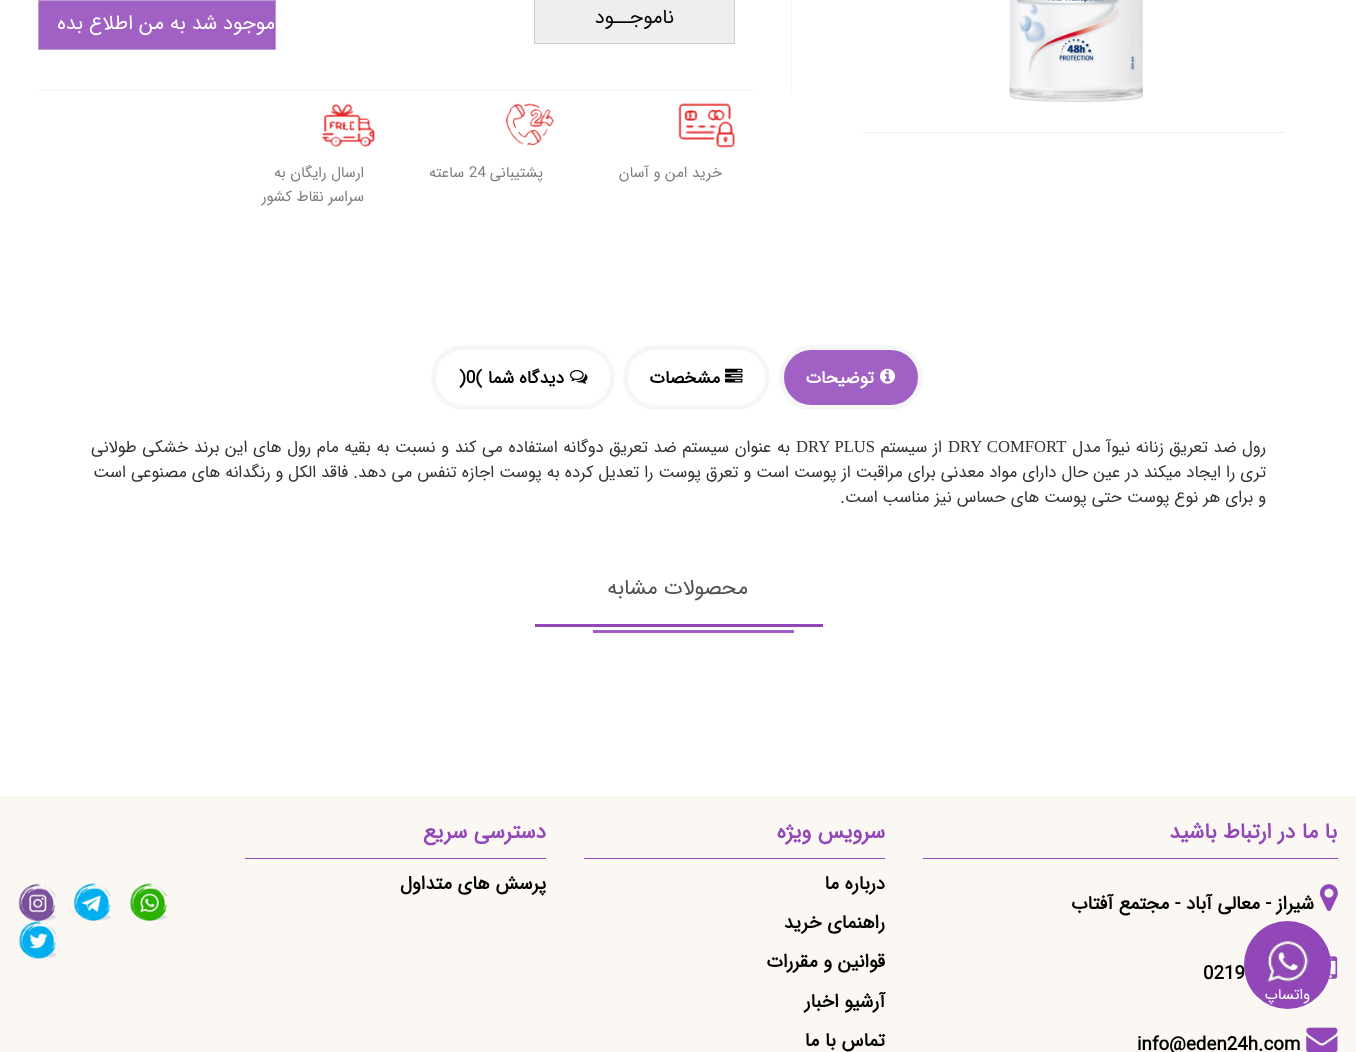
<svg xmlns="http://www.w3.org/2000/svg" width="1356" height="1052">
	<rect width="100%" height="100%" fill="#FFFFFF" />
	<rect x="863" y="132" width="422" height="1" fill="#EEEEEE" />
	<image x="863" y="0" width="422" height="132" href="assets/img1.png" />
	<rect x="791" y="0" width="1" height="94" fill="#F5F5F5" />
	<rect x="534.5" y="-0.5" width="200" height="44" fill="#EEEEEE" stroke="#CCCCCC" />
	<text x="674" y="23" font-family="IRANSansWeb" font-size="20" direction="rtl" fill="#000000">ناموجــود</text>
	<rect x="38.5" y="0.5" width="237" height="49" fill="#A160C3" stroke="#BB9ACF" />
	<text x="275" y="29" font-family="IRANSansWeb" font-size="20" direction="rtl" fill="#FFFFFF">موجود شد به من اطلاع بده</text>
	<rect x="38" y="90" width="716" height="1" fill="#F5F5F5" />
	<image x="678" y="103" width="57" height="45" href="assets/img2.png" />
	<text x="722" y="177" font-family="IRANSansWeb" font-size="15" direction="rtl" fill="#7E7E7E">خرید امن و آسان</text>
	<image x="505" y="103" width="49" height="43" href="assets/img3.png" />
	<text x="543" y="177" font-family="IRANSansWeb" font-size="15" direction="rtl" fill="#7E7E7E">پشتیبانی</text>
	<text x="469" y="177" font-family="IRANSansWeb" font-size="15" fill="#7E7E7E">24</text>
	<text x="464" y="177" font-family="IRANSansWeb" font-size="15" direction="rtl" fill="#7E7E7E">ساعته</text>
	<image x="321" y="103" width="54" height="45" href="assets/img4.png" />
	<g font-family="IRANSansWeb" font-size="15" direction="rtl" fill="#7E7E7E">
		<text x="364" y="177">ارسال رایگان به</text>
		<text x="364" y="201">سراسر نقاط کشور</text>
	</g>
	<rect x="781.5" y="347.5" width="139" height="60" rx="30" fill="#A160C3" stroke="#F6F6F6" stroke-width="5" />
	<image x="880" y="368" width="15" height="16" href="assets/img5.png" />
	<text x="874" y="383" font-family="IRANSansWeb" font-size="17.5" font-weight="700" direction="rtl" fill="#FFFFFF">توضیحات</text>
	<rect x="625.5" y="347.5" width="142" height="60" rx="30" fill="none" stroke="#F6F6F6" stroke-width="5" />
	<image x="725" y="368" width="18" height="15" href="assets/img6.png" />
	<text x="720" y="383" font-family="IRANSansWeb" font-size="17.5" font-weight="700" direction="rtl" fill="#000000">مشخصات</text>
	<rect x="433.5" y="347.5" width="179" height="60" rx="30" fill="none" stroke="#F6F6F6" stroke-width="5" />
	<image x="570" y="370" width="18" height="14" href="assets/img7.png" />
	<text x="564" y="383" font-family="IRANSansWeb" font-size="17.5" font-weight="700" direction="rtl" fill="#000000">دیدگاه شما</text>
	<text x="459" y="383" font-family="IRANSansWeb" font-size="17.5" font-weight="700" fill="#000000">)0(</text>
	<text x="1266" y="452" word-spacing="0.5" font-family="IRANSansWeb" font-size="16.67" direction="rtl" fill="#333333">رول ضد تعریق زنانه نیوآ مدل</text>
	<text x="948" y="452" word-spacing="1" font-family="Liberation Serif" font-size="16.67" fill="#333333">DRY COMFORT</text>
	<text x="942" y="452" word-spacing="0.5" font-family="IRANSansWeb" font-size="16.67" direction="rtl" fill="#333333">از سیستم</text>
	<text x="796" y="452" word-spacing="0.6" font-family="Liberation Serif" font-size="16.67" fill="#333333">DRY PLUS</text>
	<g font-family="IRANSansWeb" font-size="16.67" direction="rtl" fill="#333333">
		<text x="790" y="452" word-spacing="0.6">به عنوان سیستم ضد تعریق دوگانه استفاده می کند و نسبت به بقیه مام رول های این برند خشکی طولانی</text>
		<text x="1266" y="477">تری را ایجاد میکند در عین حال دارای مواد معدنی برای مراقبت از پوست است و تعرق پوست را تعدیل کرده به پوست اجازه تنفس می دهد. فاقد الکل و رنگدانه های مصنوعی است</text>
		<text x="1266" y="502">و برای هر نوع پوست حتی پوست های حساس نیز مناسب است.</text>
	</g>
	<text x="748" y="594" font-family="IRANSansWeb" font-size="21.25" direction="rtl" fill="#525052">محصولات مشابه</text>
	<rect x="535" y="624" width="288" height="3" fill="#9247B9" />
	<rect x="593" y="630" width="201" height="3" fill="#A160C3" />
	<rect x="0" y="796" width="1356" height="256" fill="#FBF8F3" />
	<rect x="923" y="858" width="415" height="1" fill="#9247B9" />
	<text x="1337" y="838" font-family="IRANSansWeb" font-size="21.25" font-weight="700" direction="rtl" fill="#9247B9">با ما در ارتباط باشید</text>
	<image x="1320" y="884" width="18" height="27" href="assets/img8.png" />
	<text x="1314" y="909" font-family="IRANSansWeb" font-size="18.75" font-weight="700" direction="rtl" fill="#000000">شیراز - معالی آباد - مجتمع آفتاب</text>
	<image x="1328" y="956" width="10" height="23" href="assets/img9.png" />
	<text x="1203" y="979" font-family="IRANSansWeb" font-size="18.75" font-weight="700" fill="#000000">0219</text>
	<image x="1306" y="1027" width="32" height="25" href="assets/img10.png" />
	<text x="1137" y="1050" font-family="IRANSansWeb" font-size="18.75" font-weight="700" fill="#000000">info@eden24h.com</text>
	<rect x="584" y="858" width="301" height="1" fill="#9247B9" />
	<text x="885" y="838" font-family="IRANSansWeb" font-size="21.25" font-weight="700" direction="rtl" fill="#9247B9">سرویس ویژه</text>
	<g font-family="IRANSansWeb" font-size="18.75" font-weight="700" direction="rtl" fill="#000000">
		<text x="885" y="889">درباره ما</text>
		<text x="885" y="928">راهنمای خرید</text>
		<text x="885" y="967">قوانین و مقررات</text>
		<text x="885" y="1007">آرشیو اخبار</text>
		<text x="885" y="1046">تماس با ما</text>
	</g>
	<rect x="245" y="858" width="301" height="1" fill="#9247B9" />
	<text x="546" y="838" font-family="IRANSansWeb" font-size="21.25" font-weight="700" direction="rtl" fill="#9247B9">دسترسی سریع</text>
	<text x="546" y="889" font-family="IRANSansWeb" font-size="18.75" font-weight="700" direction="rtl" fill="#000000">پرسش های متداول</text>
	<image x="130" y="883" width="38" height="38" href="assets/img11.png" />
	<image x="73" y="883" width="39" height="38" href="assets/img12.png" />
	<image x="18" y="883" width="39" height="38" href="assets/img13.png" />
	<image x="18" y="921" width="39" height="38" href="assets/img14.png" />
	<rect x="1244" y="921" width="87" height="88" rx="43.5" fill="#9247B9" />
	<image x="1267" y="941" width="41" height="42" href="assets/img15.png" />
	<text x="1310" y="999" font-family="IRANSansWeb" font-size="15" direction="rtl" fill="#FFFFFF">واتساپ</text>
</svg>
